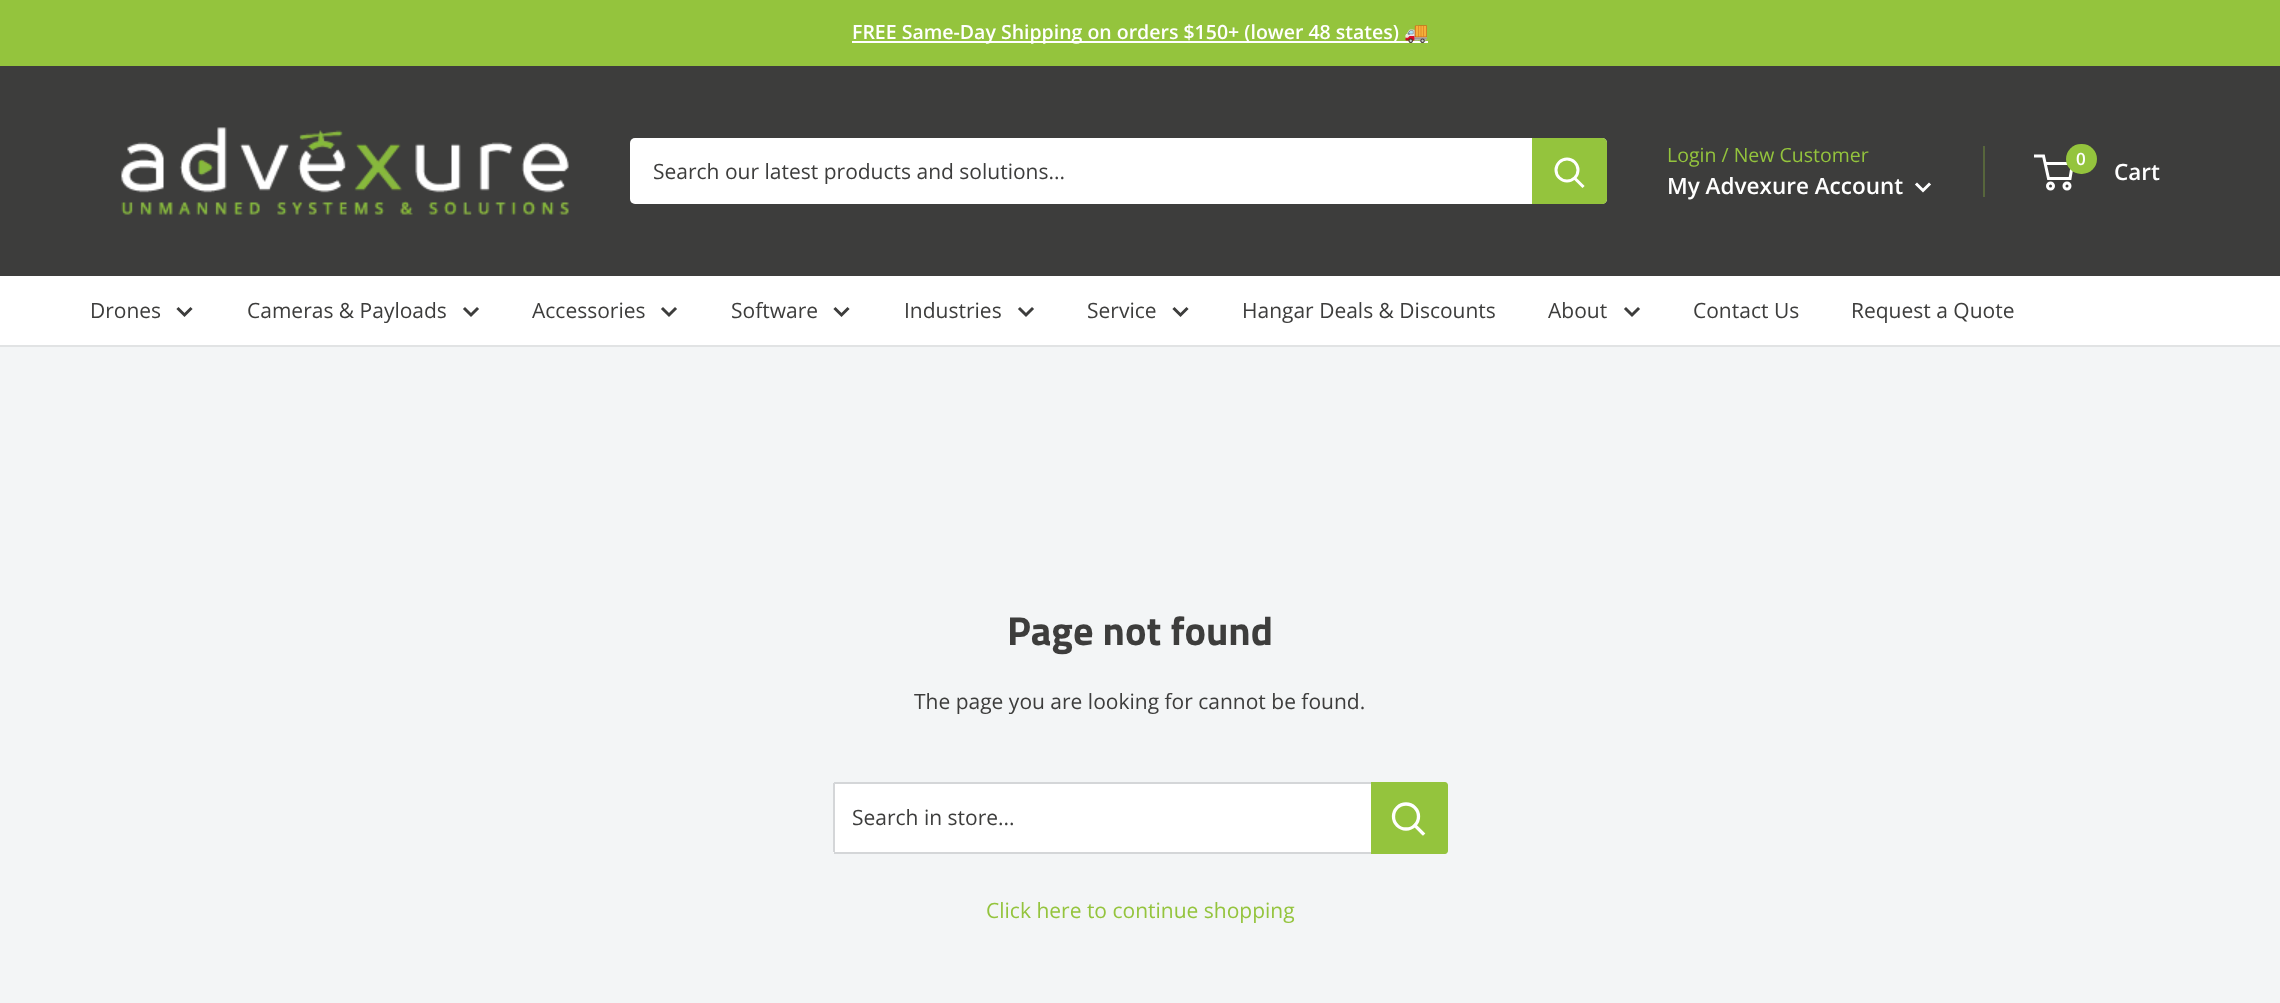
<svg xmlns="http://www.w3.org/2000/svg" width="2280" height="1003">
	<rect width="100%" height="100%" fill="#F3F5F6" />
	<rect x="0" y="0" width="2280" height="66" fill="#94C43D" />
	<rect x="852" y="41" width="576" height="2" fill="#FFFFFF" />
	<text x="852" y="39" font-family="Open Sans" font-size="19.5" font-weight="600" fill="#FFFFFF">FREE Same-Day Shipping on orders $150+ (lower 48 states)</text>
	<text x="1404" y="39" font-family="Noto Color Emoji" font-size="19.5" font-weight="700" fill="#FFFFFF">🚚</text>
	<rect x="0" y="66" width="2280" height="210" fill="#3D3D3C" />
	<image x="121" y="127" width="448" height="88" href="assets/img1.png" />
	<rect x="630" y="138" width="977" height="66" rx="5" fill="#FFFFFF" />
	<text x="653" y="179" font-family="Open Sans" font-size="21" fill="#3D3D3C">Search our latest products and solutions...</text>
	<path d="M1532 138H1602C1605 138 1607 140 1607 143V199C1607 202 1605 204 1602 204H1532Z" fill="#94C43D" />
	<path d="M1582.5 186L1575 178.5" fill="none" stroke="#FFFFFF" stroke-width="3" stroke-linecap="square" />
	<circle cx="1567" cy="170" r="11" fill="none" stroke="#FFFFFF" stroke-width="3" />
	<text x="1667" y="162" font-family="Open Sans" font-size="19.5" fill="#94C43D">Login / New Customer</text>
	<rect x="1983" y="146" width="2" height="51" fill="#57663C" />
	<text x="1667" y="194" font-family="Open Sans" font-size="22.5" font-weight="600" fill="#FFFFFF">My Advexure Account</text>
	<path d="M1929 184.5L1923 190.5L1917 184.5" fill="none" stroke="#FFFFFF" stroke-width="3" stroke-linecap="square" />
	<circle cx="2050.5" cy="186" r="3" fill="none" stroke="#FFFFFF" stroke-width="3" />
	<circle cx="2067" cy="186" r="3" fill="none" stroke="#FFFFFF" stroke-width="3" />
	<path d="M2045 163.5H2072.5L2070 178.5H2048.5L2043.5 156H2034" fill="none" stroke="#FFFFFF" stroke-width="3" />
	<rect x="2066" y="144" width="31" height="30" rx="15" fill="#94C43D" />
	<text x="2076" y="165" font-family="Open Sans" font-size="17" font-weight="600" fill="#FFFFFF">0</text>
	<text x="2114" y="180" font-family="Open Sans" font-size="22.5" font-weight="600" fill="#FFFFFF">Cart</text>
	<rect x="0" y="276" width="2280" height="69" fill="#FFFFFF" />
	<rect x="0" y="345" width="2280" height="2" fill="#E1E3E4" />
	<text x="90" y="318" font-family="Open Sans" font-size="21" fill="#3D3D3C">Drones</text>
	<path d="M190.5 309L184.5 315L178.5 309" fill="none" stroke="#3D3D3C" stroke-width="3" stroke-linecap="square" />
	<text x="247" y="318" font-family="Open Sans" font-size="21" fill="#3D3D3C">Cameras &amp; Payloads</text>
	<path d="M477 309L471 315L465 309" fill="none" stroke="#3D3D3C" stroke-width="3" stroke-linecap="square" />
	<text x="532" y="318" font-family="Open Sans" font-size="21" fill="#3D3D3C">Accessories</text>
	<path d="M675 309L669 315L663 309" fill="none" stroke="#3D3D3C" stroke-width="3" stroke-linecap="square" />
	<text x="731" y="318" font-family="Open Sans" font-size="21" fill="#3D3D3C">Software</text>
	<path d="M847.5 309L841.5 315L835.5 309" fill="none" stroke="#3D3D3C" stroke-width="3" stroke-linecap="square" />
	<text x="904" y="318" font-family="Open Sans" font-size="21" fill="#3D3D3C">Industries</text>
	<path d="M1032 309L1026 315L1020 309" fill="none" stroke="#3D3D3C" stroke-width="3" stroke-linecap="square" />
	<text x="1087" y="318" font-family="Open Sans" font-size="21" fill="#3D3D3C">Service</text>
	<path d="M1186.5 309L1180.5 315L1174.5 309" fill="none" stroke="#3D3D3C" stroke-width="3" stroke-linecap="square" />
	<g font-family="Open Sans" font-size="21" fill="#3D3D3C">
		<text x="1242" y="318">Hangar Deals &amp; Discounts</text>
		<text x="1548" y="318">About</text>
	</g>
	<path d="M1638 309L1632 315L1626 309" fill="none" stroke="#3D3D3C" stroke-width="3" stroke-linecap="square" />
	<g font-family="Open Sans" font-size="21" fill="#3D3D3C">
		<text x="1693" y="318">Contact Us</text>
		<text x="1851" y="318">Request a Quote</text>
	</g>
	<text x="1007" y="645" font-family="Titillium Web" font-size="40.5" font-weight="700" fill="#3D3D3C">Page not found</text>
	<text x="914" y="709" font-family="Open Sans" font-size="21" fill="#3D3D3C">The page you are looking for cannot be found.</text>
	<path d="M836 782H1371V854H836C834.5 854 833 852.5 833 851V785C833 783.5 834.5 782 836 782Z" fill="#FFFFFF" />
	<rect x="834" y="782" width="537" height="2" fill="#D4D6D8" />
	<rect x="834" y="852" width="537" height="2" fill="#D4D6D8" />
	<rect x="833" y="783" width="2" height="69" fill="#D4D6D8" />
	<text x="852" y="825" font-family="Open Sans" font-size="21" fill="#3D3D3C">Search in store...</text>
	<path d="M1371 782H1445C1446.5 782 1448 783.5 1448 785V851C1448 852.5 1446.5 854 1445 854H1371Z" fill="#94C43D" />
	<path d="M1423 833.5L1415 825.5" fill="none" stroke="#FFFFFF" stroke-width="3.3" stroke-linecap="square" />
	<circle cx="1406" cy="816.5" r="12.5" fill="none" stroke="#FFFFFF" stroke-width="3.3" />
	<text x="986" y="918" font-family="Open Sans" font-size="21" fill="#94C43D">Click here to continue shopping</text>
</svg>
